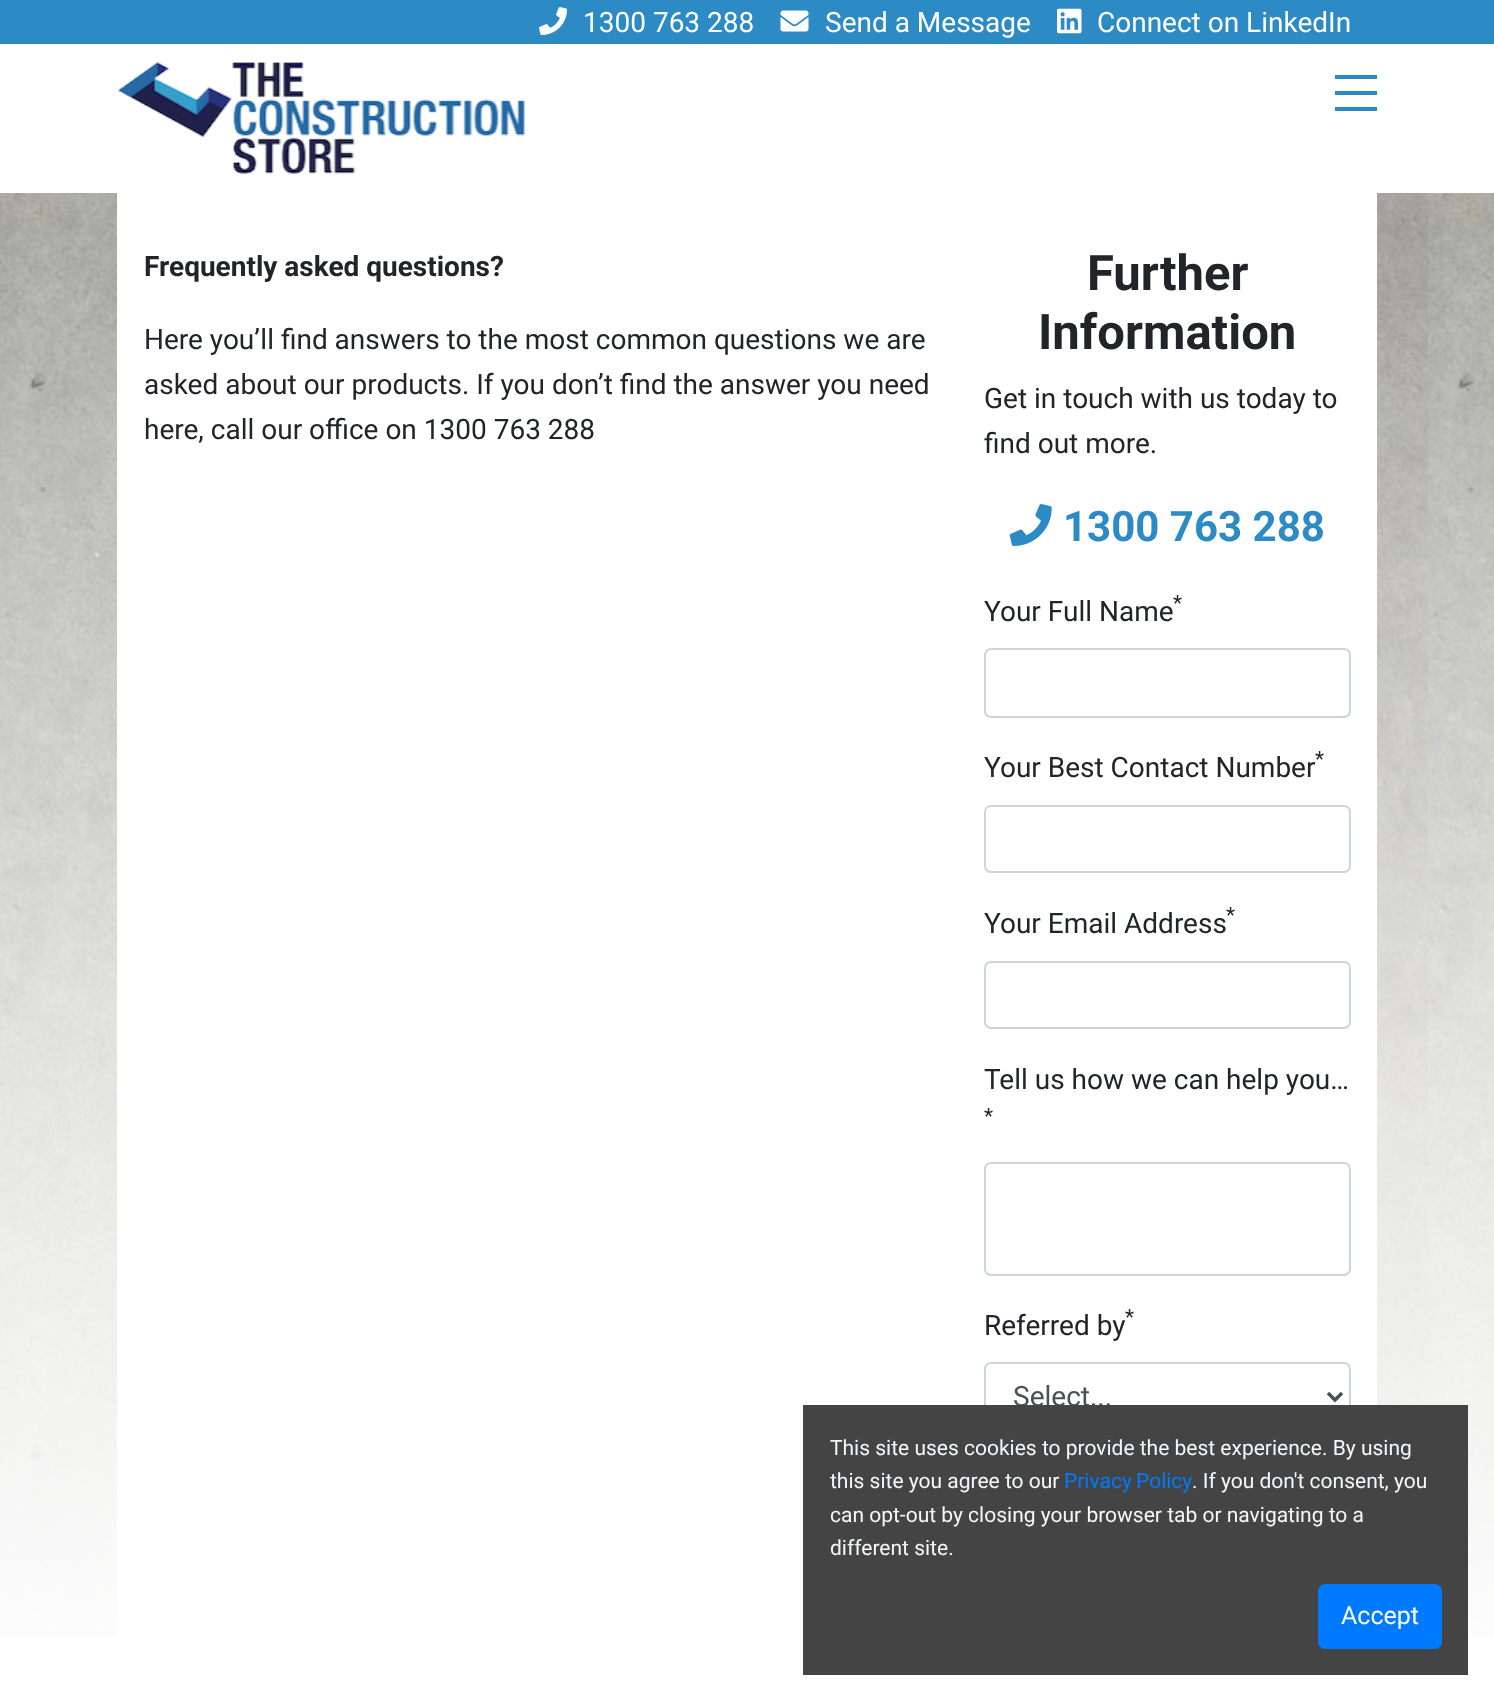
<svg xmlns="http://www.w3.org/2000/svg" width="1494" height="1700">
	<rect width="100%" height="100%" fill="#FFFFFF" />
	<rect x="0" y="0" width="1494" height="44" fill="#2C8AC5" />
	<image x="539" y="7" width="28" height="28" href="assets/img1.png" />
	<text x="583" y="32" font-family="Roboto" font-size="28" fill="#FFFFFF">1300 763 288</text>
	<image x="780" y="10" width="29" height="22" href="assets/img2.png" />
	<text x="825" y="32" font-family="Roboto" font-size="28" fill="#FFFFFF">Send a Message</text>
	<image x="1057" y="8" width="25" height="26" href="assets/img3.png" />
	<text x="1097" y="32" font-family="Roboto" font-size="28" fill="#FFFFFF">Connect on LinkedIn</text>
	<image x="118" y="62" width="407" height="112" href="assets/img4.png" />
	<rect x="1335" y="75" width="42" height="4" fill="#2C8AC5" />
	<rect x="1335" y="91" width="42" height="4" fill="#2C8AC5" />
	<rect x="1335" y="107" width="42" height="4" fill="#2C8AC5" />
	<image x="0" y="193" width="1494" height="1442" href="assets/img5.png" />
	<rect x="117" y="193" width="1260" height="1442" fill="#FFFFFF" />
	<text x="144" y="276" font-family="Roboto" font-size="28" font-weight="700" fill="#212529">Frequently asked questions?</text>
	<g font-family="Roboto" font-size="28" fill="#212529">
		<text x="144" y="349">Here you’ll find answers to the most common questions we are</text>
		<text x="144" y="394">asked about our products. If you don’t find the answer you need</text>
		<text x="144" y="439">here, call our office on 1300 763 288</text>
	</g>
	<g font-family="Roboto" font-size="49" font-weight="700" fill="#212529">
		<text x="1087" y="290">Further</text>
		<text x="1038" y="349">Information</text>
	</g>
	<g font-family="Roboto" font-size="28" fill="#212529">
		<text x="984" y="408">Get in touch with us today to</text>
		<text x="984" y="453">find out more.</text>
	</g>
	<image x="1009" y="504" width="43" height="42" href="assets/img6.png" />
	<text x="1063" y="541" font-family="Roboto" font-size="42" font-weight="700" fill="#2C8AC5">1300 763 288</text>
	<text x="984" y="621" font-family="Roboto" font-size="28" fill="#212529">Your Full Name</text>
	<text x="1173" y="610" font-family="Roboto" font-size="21" fill="#212529">*</text>
	<rect x="985" y="649" width="365" height="68" rx="6" fill="none" stroke="#CED4DA" stroke-width="2" />
	<text x="984" y="777" font-family="Roboto" font-size="28" fill="#212529">Your Best Contact Number</text>
	<text x="1315" y="766" font-family="Roboto" font-size="21" fill="#212529">*</text>
	<rect x="985" y="806" width="365" height="66" rx="6" fill="none" stroke="#CED4DA" stroke-width="2" />
	<text x="984" y="933" font-family="Roboto" font-size="28" fill="#212529">Your Email Address</text>
	<text x="1226" y="922" font-family="Roboto" font-size="21" fill="#212529">*</text>
	<rect x="985" y="962" width="365" height="66" rx="6" fill="none" stroke="#CED4DA" stroke-width="2" />
	<text x="984" y="1089" font-family="Roboto" font-size="28" fill="#212529">Tell us how we can help you…</text>
	<text x="984" y="1123" font-family="Roboto" font-size="21" fill="#212529">*</text>
	<rect x="985" y="1163" width="365" height="112" rx="6" fill="none" stroke="#CED4DA" stroke-width="2" />
	<text x="984" y="1335" font-family="Roboto" font-size="28" fill="#212529">Referred by</text>
	<text x="1125" y="1324" font-family="Roboto" font-size="21" fill="#212529">*</text>
	<rect x="985" y="1363" width="365" height="68" rx="6" fill="none" stroke="#CED4DA" stroke-width="2" />
	<path d="M1328 1393L1335 1400L1342 1393" fill="none" stroke="#495057" stroke-width="3.5" />
	<text x="1013" y="1406" font-family="Roboto" font-size="28" fill="#495057">Select...</text>
	<rect x="803" y="1405" width="665" height="270" fill="#444444" />
	<g font-family="Roboto" font-size="21" fill="#F5F8FA">
		<text x="830" y="1455">This site uses cookies to provide the best experience. By using</text>
		<text x="830" y="1488">this site you agree to our</text>
	</g>
	<text x="1064" y="1488" word-spacing="-1" font-family="Roboto" font-size="21" fill="#007BFF">Privacy Policy</text>
	<g font-family="Roboto" font-size="21" fill="#F5F8FA">
		<text x="1192" y="1488">. If you don't consent, you</text>
		<text x="830" y="1522">can opt-out by closing your browser tab or navigating to a</text>
		<text x="830" y="1555">different site.</text>
	</g>
	<rect x="1319" y="1585" width="122" height="63" rx="6" fill="#007BFF" stroke="#007BFF" stroke-width="2" />
	<text x="1341" y="1624" font-family="Roboto" font-size="25" fill="#FFFFFF">Accept</text>
</svg>
